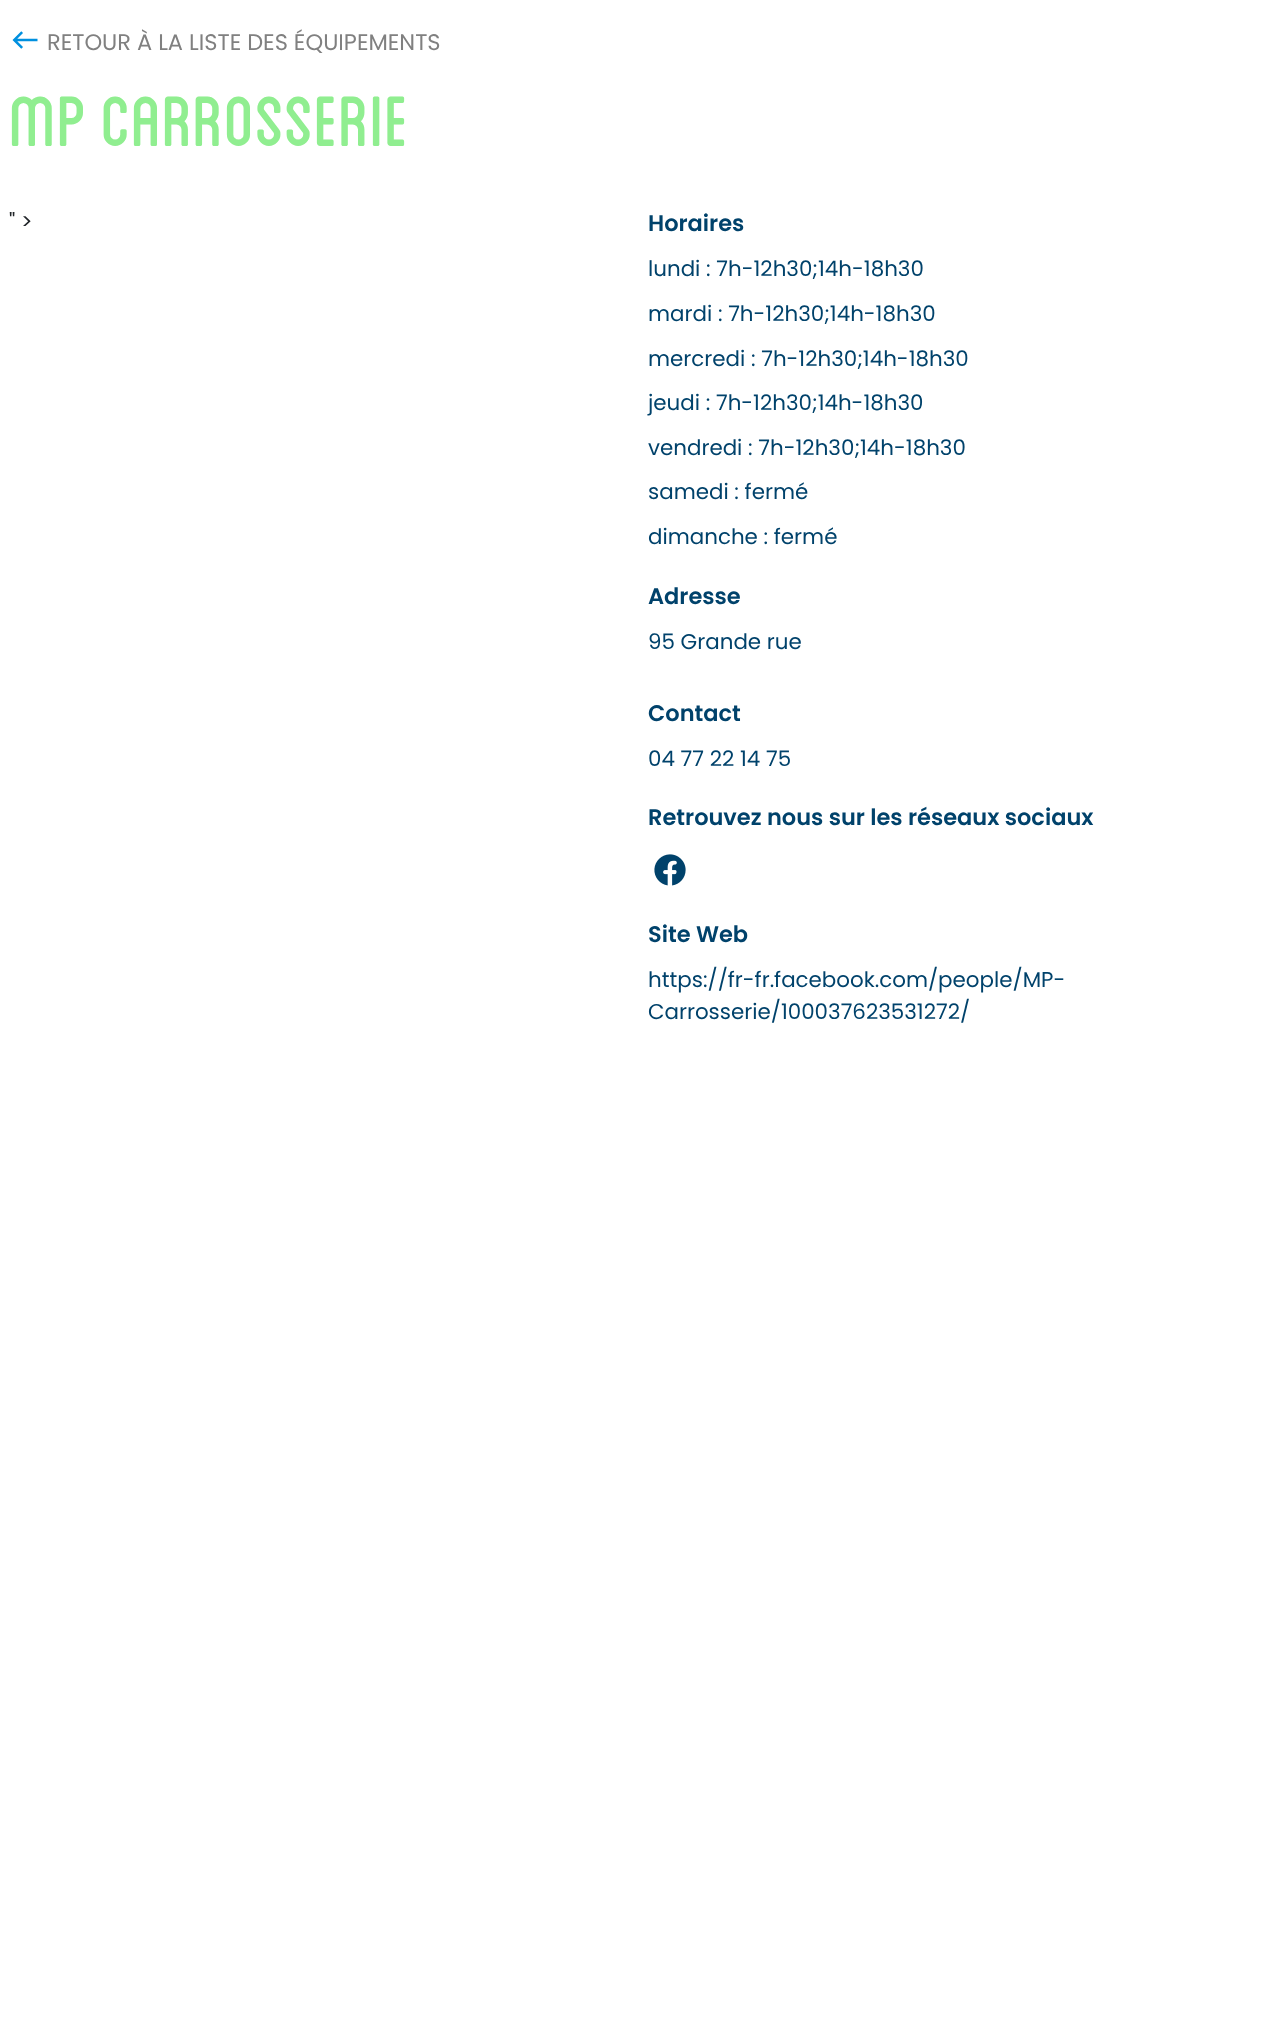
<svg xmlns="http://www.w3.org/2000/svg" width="1276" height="2023">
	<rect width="100%" height="100%" fill="#FFFFFF" />
	<image x="12" y="31" width="26" height="18" href="assets/img1.png" />
	<text x="47" y="50" font-family="Poppins" font-size="22.5" fill="#808080">RETOUR À LA LISTE DES ÉQUIPEMENTS</text>
	<text x="9" y="146" font-family="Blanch" font-size="100" fill="#90EE90">MP CARROSSERIE</text>
	<text x="9" y="229" font-family="Poppins" font-size="21.4" fill="#212529">" &gt;</text>
	<text x="648" y="231" font-family="Poppins" font-size="22.5" font-weight="600" fill="#00426B">Horaires</text>
	<g font-family="Poppins" font-size="21.4" fill="#00426B">
		<text x="648" y="276">lundi : 7h-12h30;14h-18h30</text>
		<text x="648" y="321">mardi : 7h-12h30;14h-18h30</text>
		<text x="648" y="366">mercredi : 7h-12h30;14h-18h30</text>
		<text x="648" y="410">jeudi : 7h-12h30;14h-18h30</text>
		<text x="648" y="455">vendredi : 7h-12h30;14h-18h30</text>
		<text x="648" y="499">samedi : fermé</text>
		<text x="648" y="544">dimanche : fermé</text>
	</g>
	<text x="648" y="604" font-family="Poppins" font-size="22.5" font-weight="600" fill="#00426B">Adresse</text>
	<text x="648" y="649" font-family="Poppins" font-size="21.4" fill="#00426B">95 Grande rue</text>
	<text x="648" y="721" font-family="Poppins" font-size="22.5" font-weight="600" fill="#00426B">Contact</text>
	<text x="648" y="766" font-family="Poppins" font-size="21.4" fill="#00426B">04 77 22 14 75</text>
	<text x="648" y="825" font-family="Poppins" font-size="22.5" font-weight="600" fill="#00426B">Retrouvez nous sur les réseaux sociaux</text>
	<image x="654" y="854" width="32" height="32" href="assets/img2.png" />
	<text x="648" y="942" font-family="Poppins" font-size="22.5" font-weight="600" fill="#00426B">Site Web</text>
	<g font-family="Poppins" font-size="21.4" fill="#00426B">
		<text x="648" y="987">https://fr-fr.facebook.com/people/MP-</text>
		<text x="648" y="1019">Carrosserie/100037623531272/</text>
	</g>
</svg>
